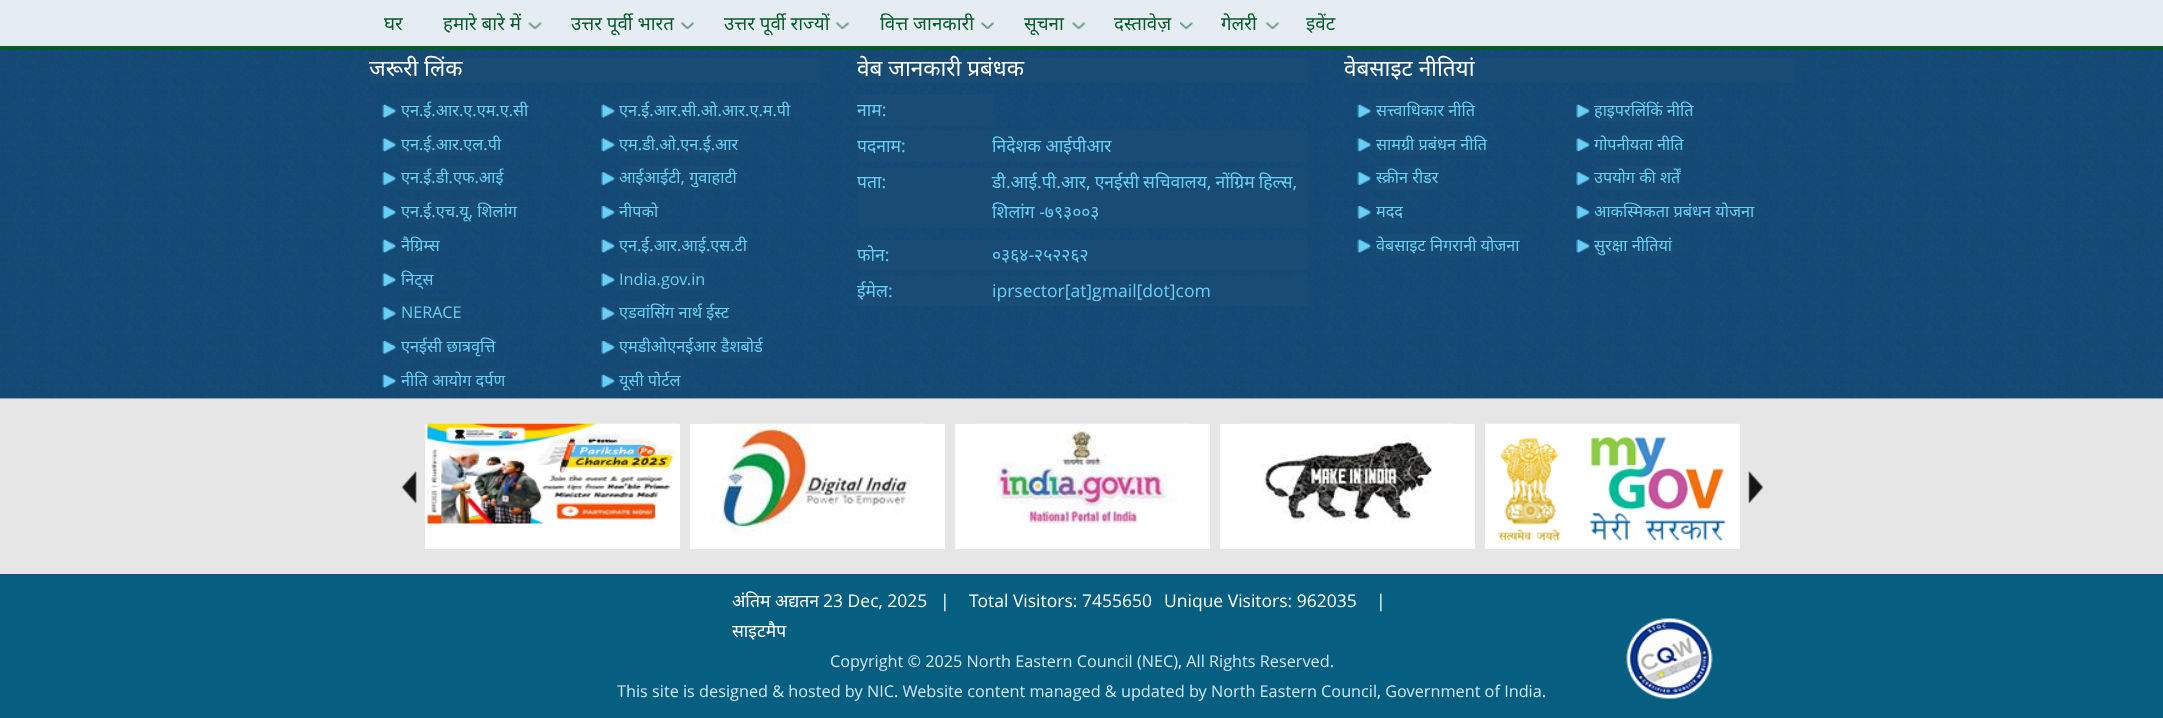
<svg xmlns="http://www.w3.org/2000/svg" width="2163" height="718">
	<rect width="100%" height="100%" fill="#FFFFFF" />
	<rect x="0" y="0" width="2163" height="46" fill="#E6EDF2" />
	<rect x="0" y="46" width="2163" height="4" fill="#075A2C" />
	<text x="384" y="30" font-family="Noto Sans" font-size="18.75" fill="#075A2C">घर</text>
	<image x="528" y="22" width="14" height="7" href="assets/img1.png" />
	<text x="443" y="30" font-family="Noto Sans" font-size="18.75" fill="#075A2C">हमारे बारे में</text>
	<image x="681" y="22" width="13" height="7" href="assets/img2.png" />
	<text x="571" y="30" font-family="Noto Sans" font-size="18.75" fill="#075A2C">उत्तर पूर्वी भारत</text>
	<image x="835" y="22" width="15" height="7" href="assets/img3.png" />
	<text x="724" y="30" font-family="Noto Sans" font-size="18.75" fill="#075A2C">उत्तर पूर्वी राज्यों</text>
	<image x="981" y="22" width="13" height="7" href="assets/img2.png" />
	<text x="880" y="30" font-family="Noto Sans" font-size="18.75" fill="#075A2C">वित्त जानकारी</text>
	<image x="1072" y="22" width="14" height="7" href="assets/img4.png" />
	<text x="1024" y="30" font-family="Noto Sans" font-size="18.75" fill="#075A2C">सूचना</text>
	<image x="1180" y="22" width="13" height="7" href="assets/img5.png" />
	<text x="1114" y="30" font-family="Noto Sans" font-size="18.75" fill="#075A2C">दस्तावेज़</text>
	<image x="1265" y="22" width="15" height="7" href="assets/img3.png" />
	<g font-family="Noto Sans" font-size="18.75" fill="#075A2C">
		<text x="1221" y="30">गेलरी</text>
		<text x="1306" y="30">इवेंट</text>
	</g>
	<image x="0" y="50" width="2163" height="349" href="assets/img6.png" />
	<rect x="370" y="58" width="450" height="25" fill="#184C74" />
	<text x="369" y="76" font-family="Noto Sans" font-size="22.5" fill="#FFFFFF">जरूरी लिंक</text>
	<image x="382" y="104" width="15" height="14" href="assets/img7.png" />
	<rect x="401" y="99" width="127" height="22" fill="#184C74" />
	<text x="401" y="116" font-family="Noto Sans" font-size="16.25" fill="#69CFF5">एन.ई.आर.ए.एम.ए.सी</text>
	<image x="601" y="104" width="14" height="14" href="assets/img8.png" />
	<rect x="620" y="99" width="170" height="22" fill="#184C74" />
	<text x="619" y="116" font-family="Noto Sans" font-size="16.25" fill="#69CFF5">एन.ई.आर.सी.ओ.आर.ए.म.पी</text>
	<image x="382" y="138" width="15" height="14" href="assets/img9.png" />
	<rect x="401" y="133" width="99" height="22" fill="#184C74" />
	<text x="401" y="150" font-family="Noto Sans" font-size="16.25" fill="#69CFF5">एन.ई.आर.एल.पी</text>
	<image x="601" y="138" width="14" height="14" href="assets/img10.png" />
	<rect x="620" y="133" width="119" height="22" fill="#184C74" />
	<text x="619" y="150" font-family="Noto Sans" font-size="16.25" fill="#69CFF5">एम.डी.ओ.एन.ई.आर</text>
	<image x="382" y="172" width="15" height="14" href="assets/img11.png" />
	<rect x="401" y="166" width="102" height="23" fill="#184C74" />
	<text x="401" y="183" font-family="Noto Sans" font-size="16.25" fill="#69CFF5">एन.ई.डी.एफ.आई</text>
	<image x="601" y="172" width="14" height="14" href="assets/img12.png" />
	<rect x="620" y="166" width="116" height="23" fill="#184C74" />
	<text x="619" y="183" font-family="Noto Sans" font-size="16.25" fill="#69CFF5">आईआईटी, गुवाहाटी</text>
	<image x="382" y="206" width="15" height="14" href="assets/img13.png" />
	<rect x="401" y="200" width="115" height="23" fill="#184C74" />
	<text x="401" y="217" font-family="Noto Sans" font-size="16.25" fill="#69CFF5">एन.ई.एच.यू, शिलांग</text>
	<image x="601" y="206" width="14" height="14" href="assets/img14.png" />
	<rect x="620" y="200" width="39" height="23" fill="#184C74" />
	<text x="619" y="217" font-family="Noto Sans" font-size="16.25" fill="#69CFF5">नीपको</text>
	<image x="382" y="239" width="15" height="14" href="assets/img15.png" />
	<rect x="401" y="234" width="38" height="22" fill="#184C74" />
	<text x="401" y="251" font-family="Noto Sans" font-size="16.25" fill="#69CFF5">नैग्रिम्स</text>
	<image x="601" y="239" width="14" height="14" href="assets/img16.png" />
	<rect x="620" y="234" width="128" height="22" fill="#184C74" />
	<text x="619" y="251" font-family="Noto Sans" font-size="16.25" fill="#69CFF5">एन.ई.आर.आई.एस.टी</text>
	<image x="382" y="273" width="15" height="14" href="assets/img17.png" />
	<rect x="401" y="268" width="32" height="22" fill="#184C74" />
	<text x="401" y="285" font-family="Noto Sans" font-size="16.25" fill="#69CFF5">निट्स</text>
	<image x="601" y="273" width="14" height="14" href="assets/img18.png" />
	<rect x="620" y="268" width="85" height="22" fill="#184C74" />
	<text x="619" y="285" font-family="Open Sans" font-size="16.25" fill="#69CFF5">India.gov.in</text>
	<image x="382" y="307" width="15" height="14" href="assets/img19.png" />
	<rect x="401" y="301" width="60" height="23" fill="#184C74" />
	<text x="401" y="318" font-family="Open Sans" font-size="16.25" fill="#69CFF5">NERACE</text>
	<image x="601" y="307" width="14" height="14" href="assets/img20.png" />
	<rect x="620" y="301" width="109" height="23" fill="#184C74" />
	<text x="619" y="318" font-family="Noto Sans" font-size="16.25" fill="#69CFF5">एडवांसिंग नार्थ ईस्ट</text>
	<image x="382" y="341" width="15" height="14" href="assets/img21.png" />
	<rect x="401" y="335" width="94" height="23" fill="#184C74" />
	<text x="401" y="352" font-family="Noto Sans" font-size="16.25" fill="#69CFF5">एनईसी छात्रवृत्ति</text>
	<image x="601" y="341" width="14" height="14" href="assets/img22.png" />
	<rect x="620" y="335" width="143" height="23" fill="#184C74" />
	<text x="619" y="352" font-family="Noto Sans" font-size="16.25" fill="#69CFF5">एमडीओएनईआर डैशबोर्ड</text>
	<image x="382" y="374" width="15" height="14" href="assets/img23.png" />
	<rect x="401" y="369" width="104" height="22" fill="#184C74" />
	<text x="401" y="386" font-family="Noto Sans" font-size="16.25" fill="#69CFF5">नीति आयोग दर्पण</text>
	<image x="601" y="374" width="14" height="15" href="assets/img24.png" />
	<rect x="620" y="369" width="61" height="22" fill="#184C74" />
	<text x="619" y="386" font-family="Noto Sans" font-size="16.25" fill="#69CFF5">यूसी पोर्टल</text>
	<rect x="858" y="58" width="450" height="25" fill="#184C74" />
	<text x="857" y="76" font-family="Noto Sans" font-size="22.5" fill="#FFFFFF">वेब जानकारी प्रबंधक</text>
	<rect x="858" y="95" width="135" height="30" fill="#184C74" />
	<text x="857" y="116" font-family="Noto Sans" font-size="17.5" fill="#69CFF5">नाम:</text>
	<rect x="858" y="131" width="450" height="30" fill="#184C74" />
	<g font-family="Noto Sans" font-size="17.5" fill="#69CFF5">
		<text x="857" y="152">पदनाम:</text>
		<text x="992" y="152">निदेशक आईपीआर</text>
	</g>
	<rect x="858" y="168" width="450" height="60" fill="#184C74" />
	<g font-family="Noto Sans" font-size="17.5" fill="#69CFF5">
		<text x="857" y="188">पता:</text>
		<text x="992" y="188" word-spacing="-0.5">डी.आई.पी.आर, एनईसी सचिवालय, नोंग्रिम हिल्स,</text>
		<text x="992" y="218">शिलांग -७९३००३</text>
	</g>
	<rect x="858" y="240" width="450" height="30" fill="#184C74" />
	<g font-family="Noto Sans" font-size="17.5" fill="#69CFF5">
		<text x="857" y="261">फोन:</text>
		<text x="992" y="261">०३६४-२५२२६२</text>
	</g>
	<rect x="858" y="276" width="450" height="30" fill="#184C74" />
	<text x="857" y="297" font-family="Noto Sans" font-size="17.5" fill="#69CFF5">ईमेल:</text>
	<text x="992" y="297" font-family="Open Sans" font-size="17.5" fill="#69CFF5">iprsector[at]gmail[dot]com</text>
	<rect x="1345" y="58" width="450" height="25" fill="#184C74" />
	<text x="1344" y="76" font-family="Noto Sans" font-size="22.5" fill="#FFFFFF">वेबसाइट नीतियां</text>
	<image x="1357" y="104" width="15" height="14" href="assets/img25.png" />
	<rect x="1376" y="99" width="99" height="22" fill="#184C74" />
	<text x="1376" y="116" font-family="Noto Sans" font-size="16.25" fill="#69CFF5">सत्त्वाधिकार नीति</text>
	<image x="1576" y="104" width="14" height="14" href="assets/img26.png" />
	<rect x="1595" y="99" width="99" height="22" fill="#184C74" />
	<text x="1594" y="116" font-family="Noto Sans" font-size="16.25" fill="#69CFF5">हाइपरलिंकिं नीति</text>
	<image x="1357" y="138" width="15" height="14" href="assets/img27.png" />
	<rect x="1376" y="133" width="110" height="22" fill="#184C74" />
	<text x="1376" y="150" font-family="Noto Sans" font-size="16.25" fill="#69CFF5">सामग्री प्रबंधन नीति</text>
	<image x="1576" y="138" width="14" height="14" href="assets/img28.png" />
	<rect x="1595" y="133" width="89" height="22" fill="#184C74" />
	<text x="1594" y="150" font-family="Noto Sans" font-size="16.25" fill="#69CFF5">गोपनीयता नीति</text>
	<image x="1357" y="172" width="15" height="14" href="assets/img29.png" />
	<rect x="1376" y="166" width="62" height="23" fill="#184C74" />
	<text x="1376" y="183" font-family="Noto Sans" font-size="16.25" fill="#69CFF5">स्क्रीन रीडर</text>
	<image x="1576" y="172" width="14" height="14" href="assets/img30.png" />
	<rect x="1595" y="166" width="86" height="23" fill="#184C74" />
	<text x="1594" y="183" font-family="Noto Sans" font-size="16.25" fill="#69CFF5">उपयोग की शर्तें</text>
	<image x="1357" y="206" width="15" height="14" href="assets/img31.png" />
	<rect x="1376" y="200" width="27" height="23" fill="#184C74" />
	<text x="1376" y="217" font-family="Noto Sans" font-size="16.25" fill="#69CFF5">मदद</text>
	<image x="1576" y="206" width="14" height="14" href="assets/img32.png" />
	<rect x="1595" y="200" width="160" height="23" fill="#184C74" />
	<text x="1594" y="217" font-family="Noto Sans" font-size="16.25" fill="#69CFF5">आकस्मिकता प्रबंधन योजना</text>
	<image x="1357" y="239" width="15" height="14" href="assets/img33.png" />
	<rect x="1376" y="234" width="143" height="22" fill="#184C74" />
	<text x="1376" y="251" font-family="Noto Sans" font-size="16.25" fill="#69CFF5">वेबसाइट निगरानी योजना</text>
	<image x="1576" y="239" width="14" height="14" href="assets/img34.png" />
	<rect x="1595" y="234" width="78" height="22" fill="#184C74" />
	<text x="1594" y="251" font-family="Noto Sans" font-size="16.25" fill="#69CFF5">सुरक्षा नीतियां</text>
	<rect x="0" y="399" width="2163" height="175" fill="#E6E6E6" />
	<image x="401" y="471" width="16" height="33" href="assets/img35.png" />
	<rect x="425" y="424" width="255" height="125" fill="#FFFFFF" />
	<image x="427" y="423" width="250" height="101" href="assets/img36.png" />
	<rect x="690" y="424" width="255" height="125" fill="#FFFFFF" />
	<image x="711" y="423" width="213" height="113" href="assets/img37.png" />
	<rect x="955" y="424" width="255" height="125" fill="#FFFFFF" />
	<image x="976" y="423" width="213" height="101" href="assets/img38.png" />
	<rect x="1220" y="424" width="255" height="125" fill="#FFFFFF" />
	<image x="1241" y="423" width="213" height="101" href="assets/img39.png" />
	<rect x="1485" y="424" width="255" height="125" fill="#FFFFFF" />
	<image x="1485" y="423" width="254" height="119" href="assets/img40.png" />
	<image x="1748" y="471" width="16" height="33" href="assets/img41.png" />
	<rect x="0" y="574" width="2163" height="144" fill="#065E80" />
	<text x="732" y="607" font-family="Noto Sans" font-size="17.5" fill="#FFFFFF">अंतिम अद्यतन</text>
	<g font-family="Open Sans" font-size="17.5" fill="#FFFFFF">
		<text x="823" y="607">23 Dec, 2025</text>
		<text x="940" y="607">|</text>
		<text x="969" y="607">Total Visitors: 7455650</text>
		<text x="1164" y="607">Unique Visitors: 962035</text>
		<text x="1376" y="607">|</text>
	</g>
	<text x="732" y="637" font-family="Noto Sans" font-size="17.5" fill="#FFFFFF">साइटमैप</text>
	<g font-family="Open Sans" font-size="16.25" fill="#D0E6F4">
		<text x="830" y="667">Copyright © 2025 North Eastern Council (NEC), All Rights Reserved.</text>
		<text x="617" y="697">This site is designed &amp; hosted by NIC. Website content managed &amp; updated by North Eastern Council, Government of India.</text>
	</g>
	<image x="1626" y="618" width="87" height="81" href="assets/img42.png" />
</svg>
